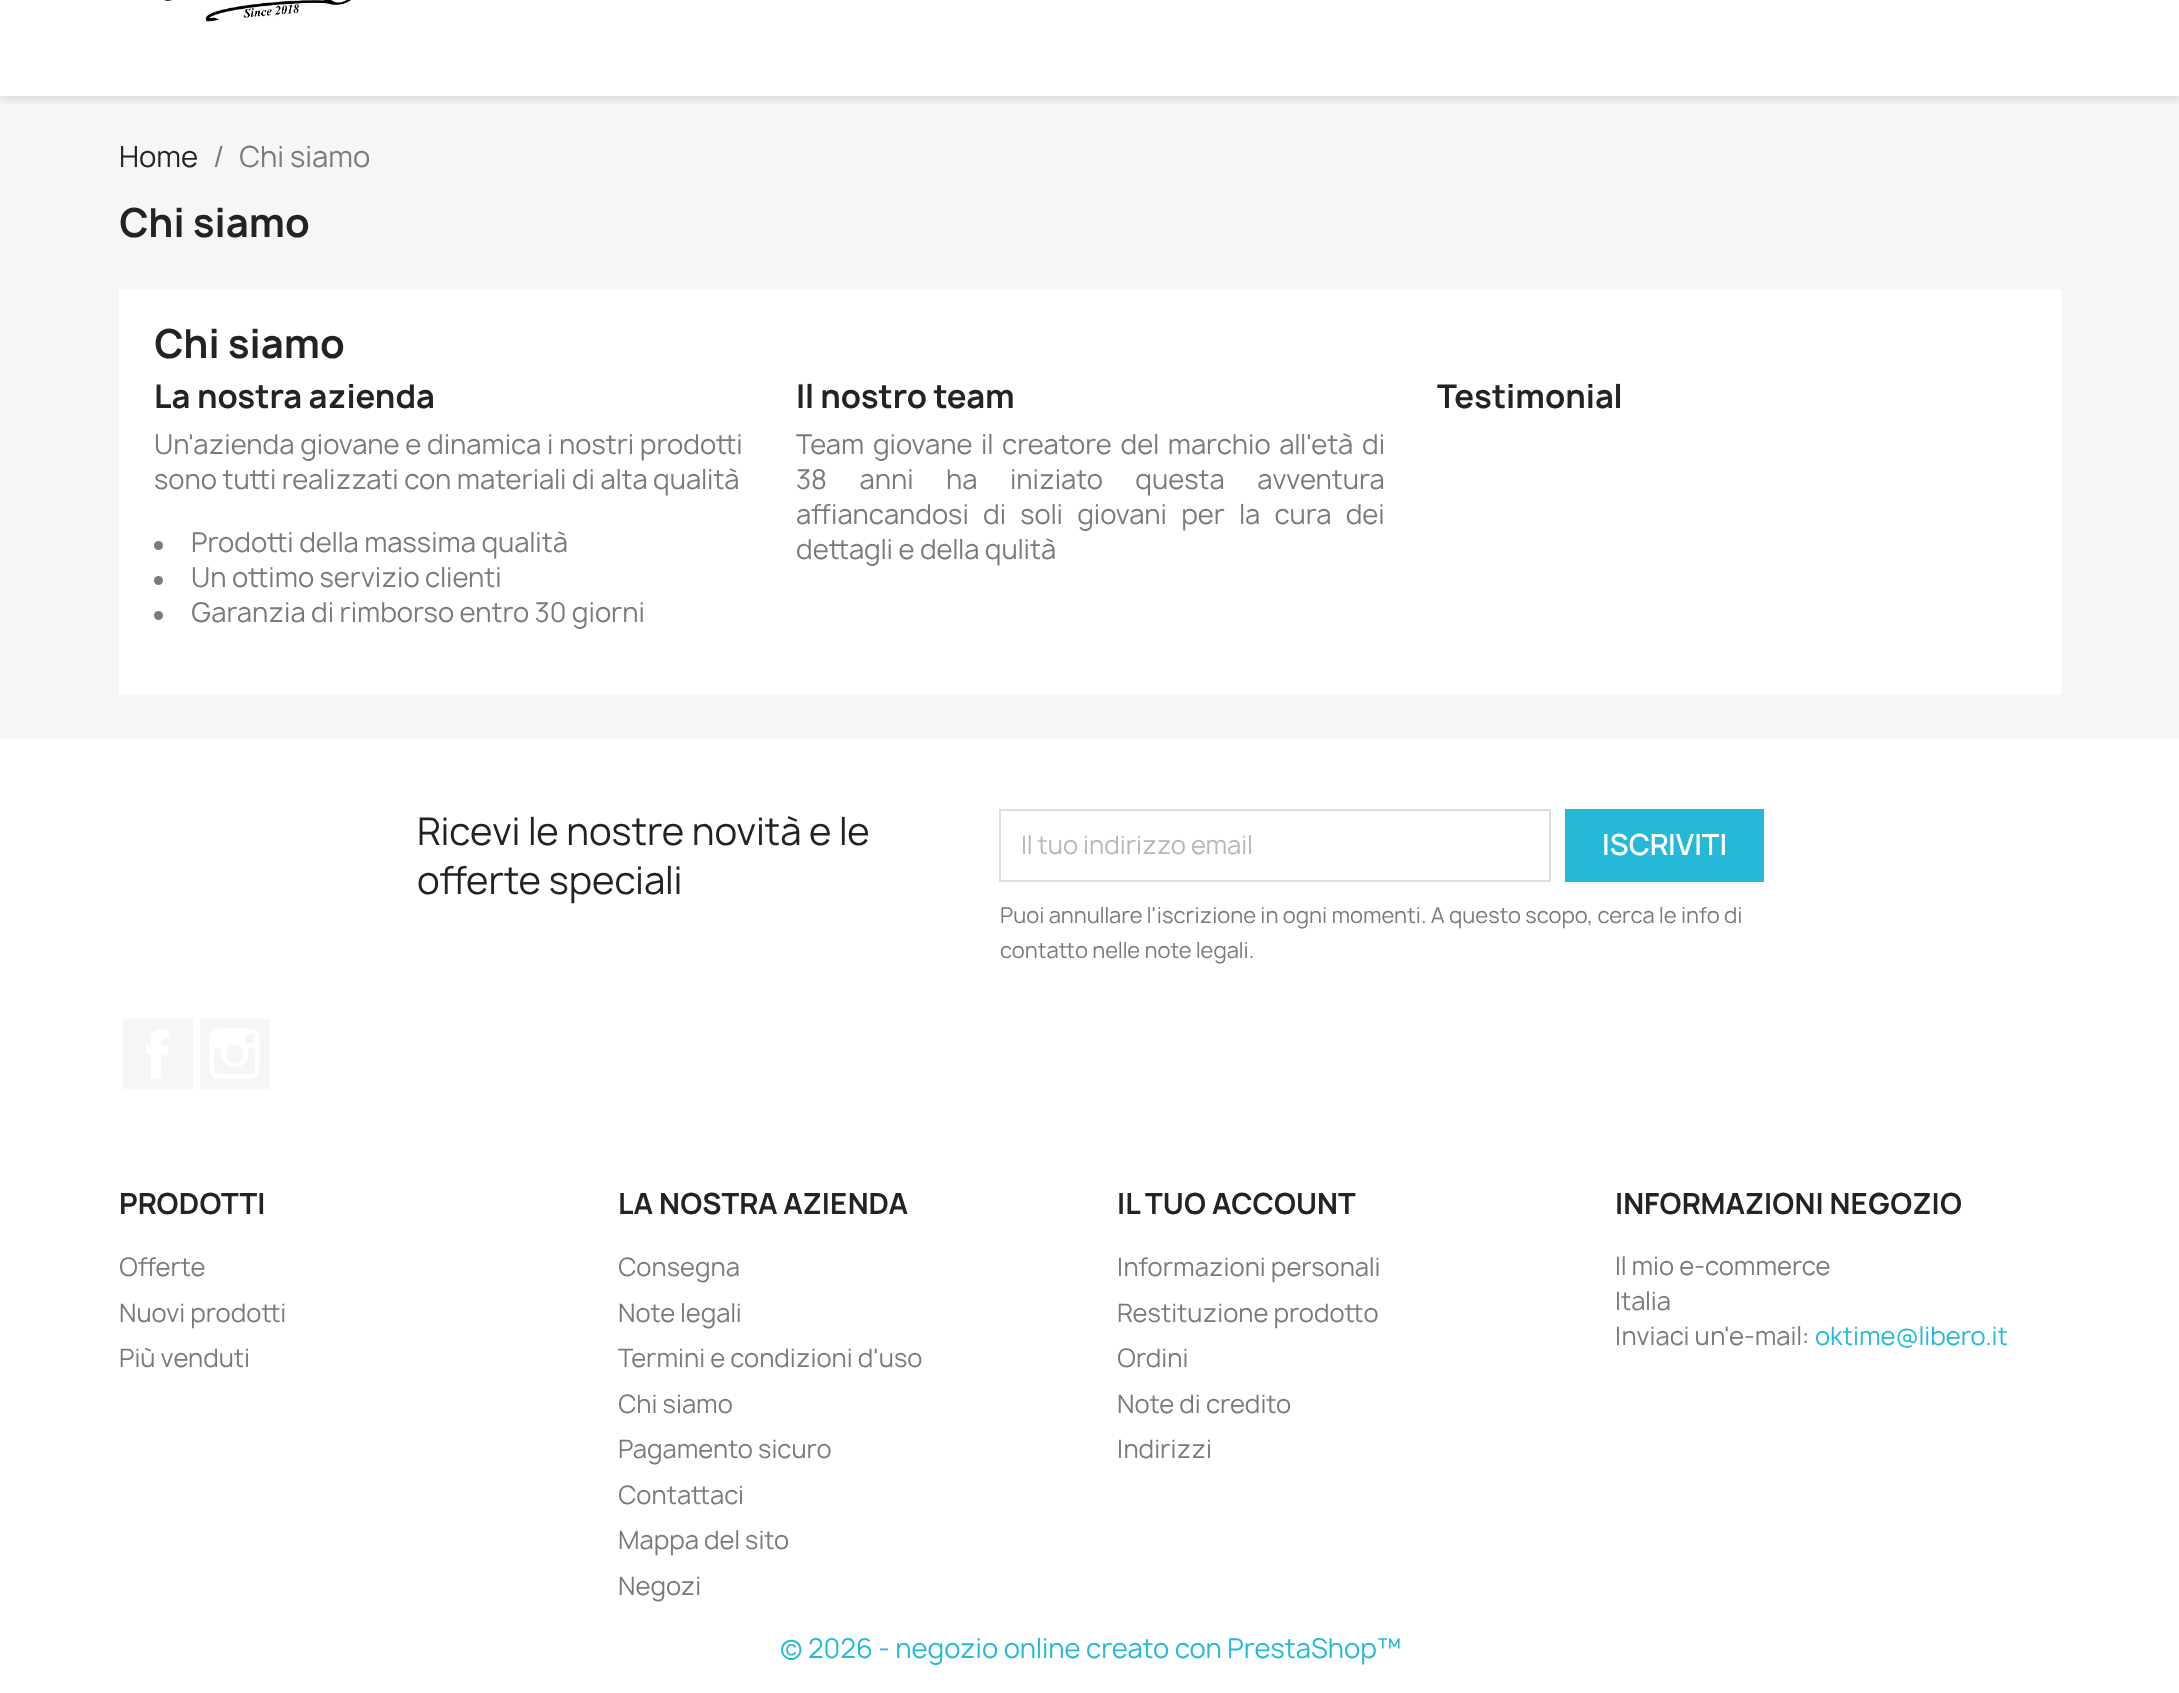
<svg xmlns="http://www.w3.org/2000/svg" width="2179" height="1693">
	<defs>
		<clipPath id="clip1"><rect x="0" y="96" width="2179" height="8" /></clipPath>
	</defs>
	<rect width="100%" height="100%" fill="#FFFFFF" />
	<rect x="0" y="96" width="2179" height="643" fill="#F6F6F6" />
	<g clip-path="url(#clip1)">
		<rect x="0" y="-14" width="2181" height="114" fill="#000000" fill-opacity="0.11" filter="blur(4.5px)" />
	</g>
	<image x="164" y="0" width="187" height="22" href="assets/img1.png" />
	<text x="119" y="167" font-family="Manrope" font-size="28" fill="#232323">Home</text>
	<g font-family="Manrope" font-size="28" fill="#7A7A7A">
		<text x="213" y="167">/</text>
		<text x="239" y="167">Chi siamo</text>
	</g>
	<text x="119" y="237" font-family="Manrope" font-size="38.5" font-weight="700" fill="#232323">Chi siamo</text>
	<rect x="119" y="289" width="1943" height="406" fill="#FFFFFF" />
	<text x="154" y="358" font-family="Manrope" font-size="38.5" font-weight="700" fill="#232323">Chi siamo</text>
	<text x="154" y="408" font-family="Manrope" font-size="31.5" font-weight="700" fill="#232323">La nostra azienda</text>
	<g font-family="Manrope" font-size="26.25" fill="#7A7A7A">
		<text x="154" y="454" word-spacing="0.25">Un'azienda giovane e dinamica i nostri prodotti</text>
		<text x="154" y="489">sono tutti realizzati con materiali di alta qualità</text>
	</g>
	<circle cx="158.5" cy="545.5" r="4.5" fill="#7A7A7A" />
	<text x="191" y="552" font-family="Manrope" font-size="26.25" fill="#7A7A7A">Prodotti della massima qualità</text>
	<circle cx="158.5" cy="580.5" r="4.5" fill="#7A7A7A" />
	<text x="191" y="587" font-family="Manrope" font-size="26.25" fill="#7A7A7A">Un ottimo servizio clienti</text>
	<circle cx="158.5" cy="615.5" r="4.5" fill="#7A7A7A" />
	<text x="191" y="622" font-family="Manrope" font-size="26.25" fill="#7A7A7A">Garanzia di rimborso entro 30 giorni</text>
	<text x="796" y="408" font-family="Manrope" font-size="31.5" font-weight="700" fill="#232323">Il nostro team</text>
	<g font-family="Manrope" font-size="26.25" fill="#7A7A7A">
		<text x="796" y="454" word-spacing="3.25">Team giovane il creatore del marchio all'età di</text>
		<text x="796" y="489" word-spacing="27">38 anni ha iniziato questa avventura</text>
		<text x="796" y="524" word-spacing="8.75">affiancandosi di soli giovani per la cura dei</text>
		<text x="796" y="559">dettagli e della qulità</text>
	</g>
	<text x="1437" y="408" font-family="Manrope" font-size="31.5" font-weight="700" fill="#232323">Testimonial</text>
	<g font-family="Manrope" font-size="36.75" fill="#232323">
		<text x="417" y="845">Ricevi le nostre novità e le</text>
		<text x="417" y="894">offerte speciali</text>
	</g>
	<rect x="1000" y="810" width="550" height="71" fill="none" stroke="#DDDDDD" stroke-width="2" />
	<text x="1021" y="854" font-family="Manrope" font-size="24.5" fill="#B7B7B7">Il tuo indirizzo email</text>
	<rect x="1565" y="809" width="199" height="73" fill="#24B9D7" />
	<text x="1602" y="855" font-family="Manrope" font-size="28" font-weight="600" fill="#FFFFFF">ISCRIVITI</text>
	<g font-family="Manrope" font-size="21" fill="#7A7A7A">
		<text x="1000" y="923">Puoi annullare l'iscrizione in ogni momenti. A questo scopo, cerca le info di</text>
		<text x="1000" y="958">contatto nelle note legali.</text>
	</g>
	<rect x="123" y="1019" width="70" height="70" fill="#F6F6F6" />
	<image x="146" y="1029" width="23" height="50" href="assets/img2.png" />
	<rect x="200" y="1019" width="70" height="70" fill="#F6F6F6" />
	<image x="209" y="1028" width="51" height="51" href="assets/img3.png" />
	<text x="119" y="1214" font-family="Manrope" font-size="28" font-weight="700" fill="#232323">PRODOTTI</text>
	<g font-family="Manrope" font-size="24.5" fill="#7A7A7A">
		<text x="119" y="1276">Offerte</text>
		<text x="119" y="1322">Nuovi prodotti</text>
		<text x="119" y="1367">Più venduti</text>
	</g>
	<text x="618" y="1214" font-family="Manrope" font-size="28" font-weight="700" fill="#232323">LA NOSTRA AZIENDA</text>
	<g font-family="Manrope" font-size="24.5" fill="#7A7A7A">
		<text x="618" y="1276">Consegna</text>
		<text x="618" y="1322">Note legali</text>
		<text x="618" y="1367">Termini e condizioni d'uso</text>
		<text x="618" y="1413">Chi siamo</text>
		<text x="618" y="1458">Pagamento sicuro</text>
		<text x="618" y="1504">Contattaci</text>
		<text x="618" y="1549">Mappa del sito</text>
		<text x="618" y="1595">Negozi</text>
	</g>
	<text x="1117" y="1214" font-family="Manrope" font-size="28" font-weight="700" fill="#232323">IL TUO ACCOUNT</text>
	<g font-family="Manrope" font-size="24.5" fill="#7A7A7A">
		<text x="1117" y="1276">Informazioni personali</text>
		<text x="1117" y="1322">Restituzione prodotto</text>
		<text x="1117" y="1367">Ordini</text>
		<text x="1117" y="1413">Note di credito</text>
		<text x="1117" y="1458">Indirizzi</text>
	</g>
	<text x="1615" y="1214" font-family="Manrope" font-size="28" font-weight="700" fill="#232323">INFORMAZIONI NEGOZIO</text>
	<g font-family="Manrope" font-size="24.5" fill="#7A7A7A">
		<text x="1615" y="1275">Il mio e-commerce</text>
		<text x="1615" y="1310">Italia</text>
		<text x="1615" y="1345">Inviaci un'e-mail:</text>
	</g>
	<text x="1815" y="1345" font-family="Manrope" font-size="24.5" fill="#24B9D7">oktime@libero.it</text>
	<text x="780" y="1658" font-family="Manrope" font-size="26.25" fill="#24B9D7">© 2026 - negozio online creato con PrestaShop™</text>
</svg>
